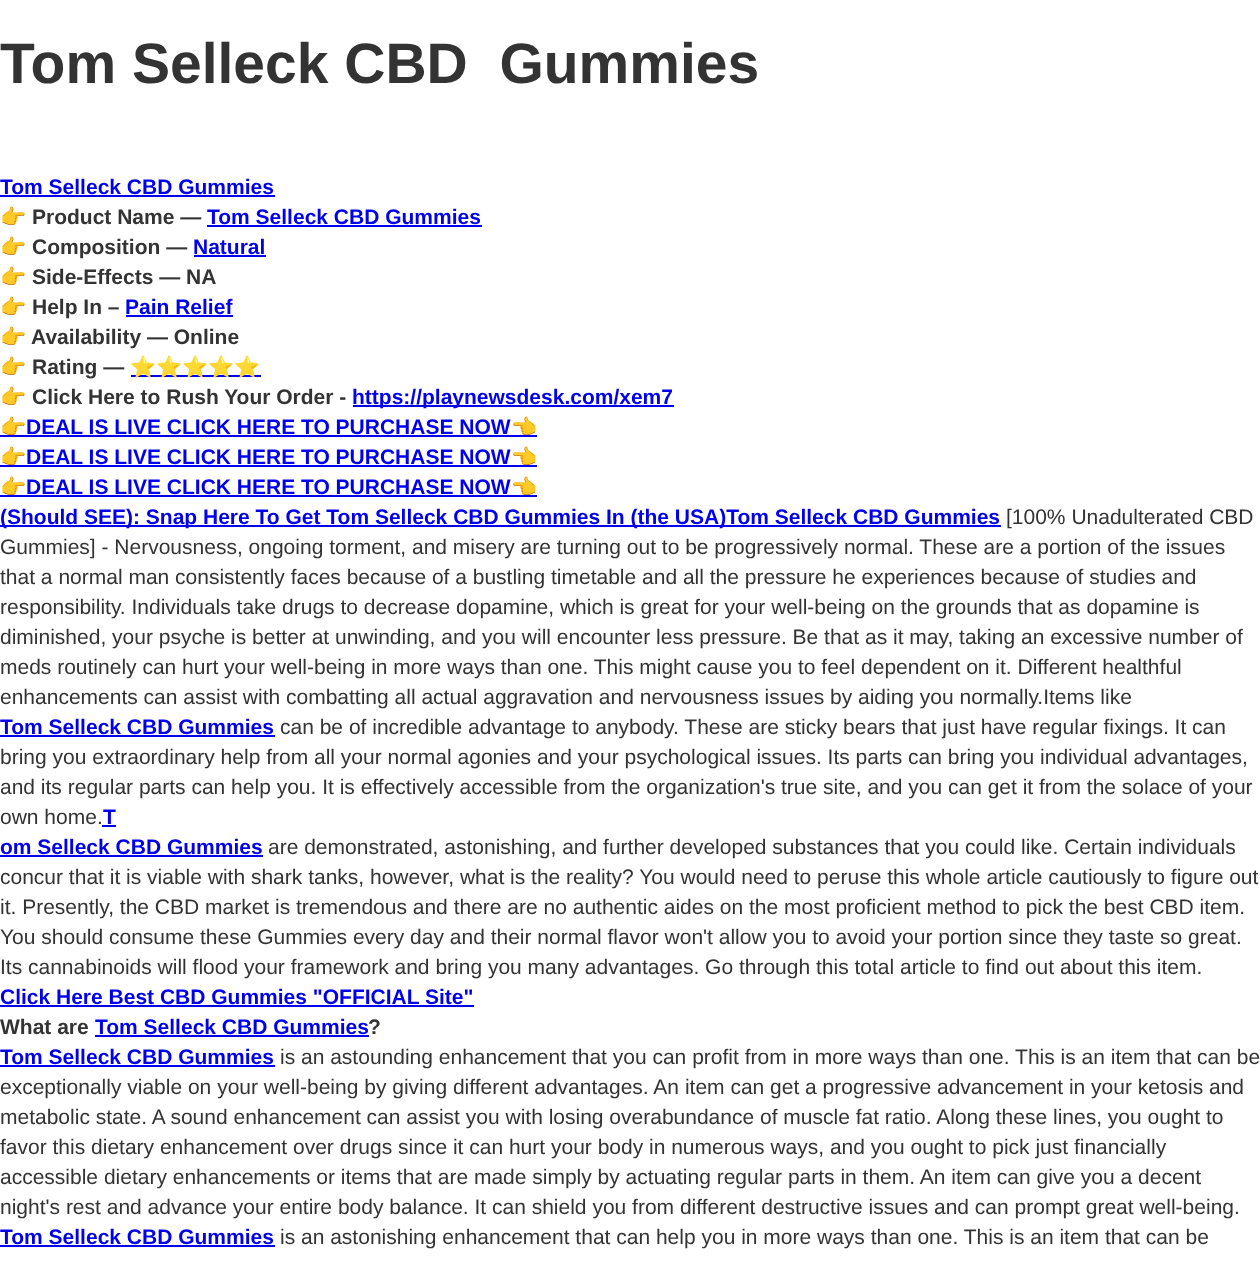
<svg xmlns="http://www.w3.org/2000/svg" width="1260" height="1263">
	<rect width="100%" height="100%" fill="#FFFFFF" />
	<text x="0" y="83" font-family="Liberation Sans" font-size="57" font-weight="700" fill="#333333" xml:space="preserve">Tom Selleck CBD  Gummies</text>
	<text x="0" y="194" font-family="Liberation Sans" font-size="21" font-weight="700" fill="#0000EE">Tom Selleck CBD Gummies</text>
	<rect x="0" y="195" width="275" height="2" fill="#0000EE" />
	<text x="0" y="224" font-family="Noto Color Emoji" font-size="21" font-weight="700" fill="#333333">👉</text>
	<text x="32" y="224" font-family="Liberation Sans" font-size="21" font-weight="700" fill="#333333">Product Name —</text>
	<text x="207" y="224" font-family="Liberation Sans" font-size="21" font-weight="700" fill="#0000EE">Tom Selleck CBD Gummies</text>
	<rect x="207" y="225" width="275" height="2" fill="#0000EE" />
	<text x="0" y="254" font-family="Noto Color Emoji" font-size="21" font-weight="700" fill="#333333">👉</text>
	<text x="32" y="254" font-family="Liberation Sans" font-size="21" font-weight="700" fill="#333333">Composition —</text>
	<text x="193" y="254" font-family="Liberation Sans" font-size="21" font-weight="700" fill="#0000EE">Natural</text>
	<rect x="194" y="255" width="72" height="2" fill="#0000EE" />
	<text x="0" y="284" font-family="Noto Color Emoji" font-size="21" font-weight="700" fill="#333333">👉</text>
	<text x="32" y="284" font-family="Liberation Sans" font-size="21" font-weight="700" fill="#333333">Side-Effects — NA</text>
	<text x="0" y="314" font-family="Noto Color Emoji" font-size="21" font-weight="700" fill="#333333">👉</text>
	<text x="32" y="314" font-family="Liberation Sans" font-size="21" font-weight="700" fill="#333333">Help In –</text>
	<text x="125" y="314" font-family="Liberation Sans" font-size="21" font-weight="700" fill="#0000EE">Pain Relief</text>
	<rect x="126" y="315" width="107" height="2" fill="#0000EE" />
	<text x="0" y="344" font-family="Noto Color Emoji" font-size="21" font-weight="700" fill="#333333">👉</text>
	<text x="31" y="344" font-family="Liberation Sans" font-size="21" font-weight="700" fill="#333333">Availability — Online</text>
	<text x="0" y="374" font-family="Noto Color Emoji" font-size="21" font-weight="700" fill="#333333">👉</text>
	<text x="32" y="374" font-family="Liberation Sans" font-size="21" font-weight="700" fill="#333333">Rating —</text>
	<rect x="131" y="375" width="130" height="2" fill="#0000EE" />
	<text x="130" y="374" font-family="Noto Color Emoji" font-size="21" font-weight="700" fill="#0000EE">⭐⭐⭐⭐⭐</text>
	<text x="0" y="404" font-family="Noto Color Emoji" font-size="21" font-weight="700" fill="#333333">👉</text>
	<text x="32" y="404" font-family="Liberation Sans" font-size="21" font-weight="700" fill="#333333">Click Here to Rush Your Order -</text>
	<rect x="353" y="405" width="321" height="2" fill="#0000EE" />
	<text x="352" y="404" font-family="Liberation Sans" font-size="21" font-weight="700" fill="#0000EE">https://playnewsdesk.com/xem7</text>
	<rect x="0" y="435" width="537" height="2" fill="#0000EE" />
	<text x="0" y="434" font-family="Noto Color Emoji" font-size="21" font-weight="700" fill="#0000EE">👉</text>
	<text x="26" y="434" font-family="Liberation Sans" font-size="21" font-weight="700" fill="#0000EE">DEAL IS LIVE CLICK HERE TO PURCHASE NOW</text>
	<text x="511" y="434" font-family="Noto Color Emoji" font-size="21" font-weight="700" fill="#0000EE">👈</text>
	<rect x="0" y="465" width="537" height="2" fill="#0000EE" />
	<text x="0" y="464" font-family="Noto Color Emoji" font-size="21" font-weight="700" fill="#0000EE">👉</text>
	<text x="26" y="464" font-family="Liberation Sans" font-size="21" font-weight="700" fill="#0000EE">DEAL IS LIVE CLICK HERE TO PURCHASE NOW</text>
	<text x="511" y="464" font-family="Noto Color Emoji" font-size="21" font-weight="700" fill="#0000EE">👈</text>
	<rect x="0" y="495" width="537" height="2" fill="#0000EE" />
	<text x="0" y="494" font-family="Noto Color Emoji" font-size="21" font-weight="700" fill="#0000EE">👉</text>
	<text x="26" y="494" font-family="Liberation Sans" font-size="21" font-weight="700" fill="#0000EE">DEAL IS LIVE CLICK HERE TO PURCHASE NOW</text>
	<text x="511" y="494" font-family="Noto Color Emoji" font-size="21" font-weight="700" fill="#0000EE">👈</text>
	<rect x="0" y="525" width="1001" height="2" fill="#0000EE" />
	<text x="0" y="524" font-family="Liberation Sans" font-size="21" font-weight="700" fill="#0000EE">(Should SEE): Snap Here To Get Tom Selleck CBD Gummies In (the USA)Tom Selleck CBD Gummies</text>
	<g font-family="Liberation Sans" font-size="21" fill="#333333">
		<text x="1006" y="524">[100% Unadulterated CBD</text>
		<text x="0" y="554">Gummies] - Nervousness, ongoing torment, and misery are turning out to be progressively normal. These are a portion of the issues</text>
		<text x="0" y="584">that a normal man consistently faces because of a bustling timetable and all the pressure he experiences because of studies and</text>
		<text x="0" y="614">responsibility. Individuals take drugs to decrease dopamine, which is great for your well-being on the grounds that as dopamine is</text>
		<text x="0" y="644">diminished, your psyche is better at unwinding, and you will encounter less pressure. Be that as it may, taking an excessive number of</text>
		<text x="0" y="674">meds routinely can hurt your well-being in more ways than one. This might cause you to feel dependent on it. Different healthful</text>
		<text x="0" y="704">enhancements can assist with combatting all actual aggravation and nervousness issues by aiding you normally.Items like</text>
	</g>
	<text x="0" y="734" font-family="Liberation Sans" font-size="21" font-weight="700" fill="#0000EE">Tom Selleck CBD Gummies</text>
	<rect x="0" y="735" width="275" height="2" fill="#0000EE" />
	<g font-family="Liberation Sans" font-size="21" fill="#333333">
		<text x="280" y="734">can be of incredible advantage to anybody. These are sticky bears that just have regular fixings. It can</text>
		<text x="0" y="764">bring you extraordinary help from all your normal agonies and your psychological issues. Its parts can bring you individual advantages,</text>
		<text x="0" y="794">and its regular parts can help you. It is effectively accessible from the organization's true site, and you can get it from the solace of your</text>
		<text x="0" y="824">own home.</text>
	</g>
	<text x="103" y="824" font-family="Liberation Sans" font-size="21" font-weight="700" fill="#0000EE">T</text>
	<rect x="102" y="825" width="14" height="2" fill="#0000EE" />
	<text x="0" y="854" font-family="Liberation Sans" font-size="21" font-weight="700" fill="#0000EE">om Selleck CBD Gummies</text>
	<rect x="0" y="855" width="263" height="2" fill="#0000EE" />
	<g font-family="Liberation Sans" font-size="21" fill="#333333">
		<text x="268" y="854">are demonstrated, astonishing, and further developed substances that you could like. Certain individuals</text>
		<text x="0" y="884">concur that it is viable with shark tanks, however, what is the reality? You would need to peruse this whole article cautiously to figure out</text>
		<text x="0" y="914">it. Presently, the CBD market is tremendous and there are no authentic aides on the most proficient method to pick the best CBD item.</text>
		<text x="0" y="944">You should consume these Gummies every day and their normal flavor won't allow you to avoid your portion since they taste so great.</text>
		<text x="0" y="974">Its cannabinoids will flood your framework and bring you many advantages. Go through this total article to find out about this item.</text>
	</g>
	<text x="0" y="1004" font-family="Liberation Sans" font-size="21" font-weight="700" fill="#0000EE">Click Here Best CBD Gummies "OFFICIAL Site"</text>
	<rect x="0" y="1005" width="474" height="2" fill="#0000EE" />
	<text x="0" y="1034" font-family="Liberation Sans" font-size="21" font-weight="700" fill="#333333">What are</text>
	<text x="95" y="1034" font-family="Liberation Sans" font-size="21" font-weight="700" fill="#0000EE">Tom Selleck CBD Gummies</text>
	<rect x="95" y="1035" width="274" height="2" fill="#0000EE" />
	<text x="368" y="1034" font-family="Liberation Sans" font-size="21" font-weight="700" fill="#333333">?</text>
	<text x="0" y="1064" font-family="Liberation Sans" font-size="21" font-weight="700" fill="#0000EE">Tom Selleck CBD Gummies</text>
	<rect x="0" y="1065" width="275" height="2" fill="#0000EE" />
	<g font-family="Liberation Sans" font-size="21" fill="#333333">
		<text x="280" y="1064">is an astounding enhancement that you can profit from in more ways than one. This is an item that can be</text>
		<text x="0" y="1094">exceptionally viable on your well-being by giving different advantages. An item can get a progressive advancement in your ketosis and</text>
		<text x="0" y="1124">metabolic state. A sound enhancement can assist you with losing overabundance of muscle fat ratio. Along these lines, you ought to</text>
		<text x="0" y="1154">favor this dietary enhancement over drugs since it can hurt your body in numerous ways, and you ought to pick just financially</text>
		<text x="0" y="1184">accessible dietary enhancements or items that are made simply by actuating regular parts in them. An item can give you a decent</text>
		<text x="0" y="1214">night's rest and advance your entire body balance. It can shield you from different destructive issues and can prompt great well-being.</text>
	</g>
	<text x="0" y="1244" font-family="Liberation Sans" font-size="21" font-weight="700" fill="#0000EE">Tom Selleck CBD Gummies</text>
	<rect x="0" y="1245" width="275" height="2" fill="#0000EE" />
	<text x="280" y="1244" font-family="Liberation Sans" font-size="21" fill="#333333">is an astonishing enhancement that can help you in more ways than one. This is an item that can be</text>
</svg>
